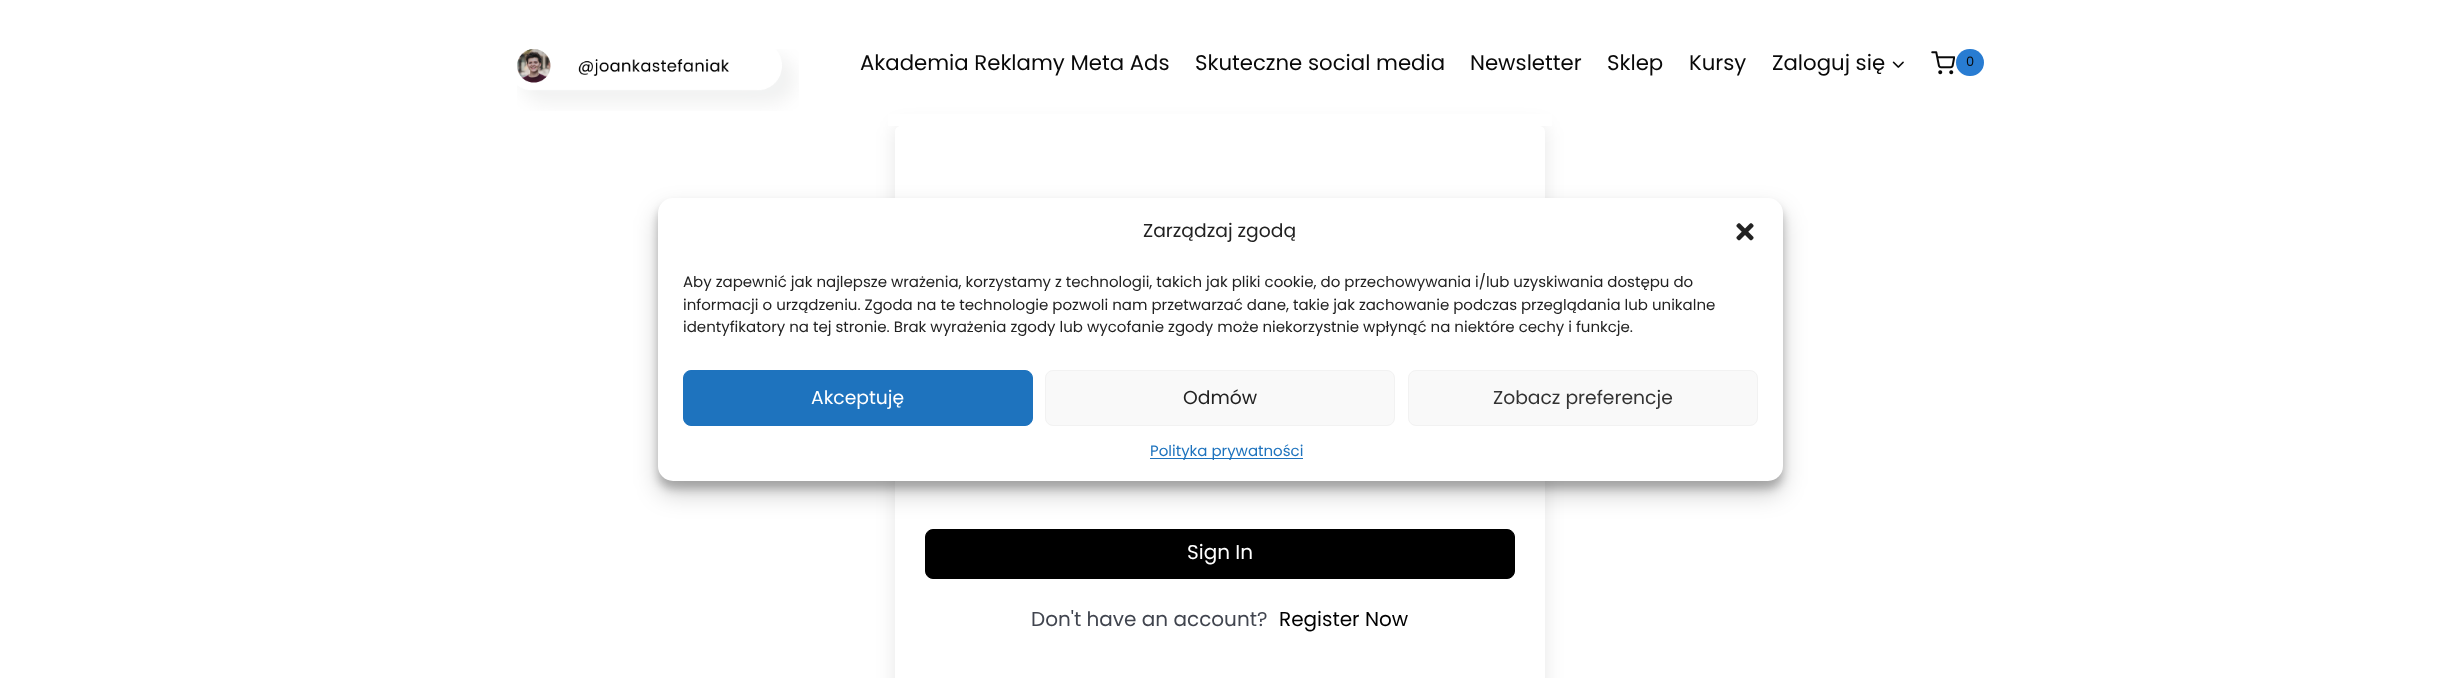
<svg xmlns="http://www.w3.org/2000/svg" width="2439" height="678">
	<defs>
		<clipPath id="clip1"><path d="M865 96H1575V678H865ZM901 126H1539C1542.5 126 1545 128.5 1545 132V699C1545 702.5 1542.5 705 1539 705H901C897.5 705 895 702.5 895 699V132C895 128.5 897.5 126 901 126Z" clip-rule="evenodd" /></clipPath>
	</defs>
	<rect width="100%" height="100%" fill="#FFFFFF" />
	<g clip-path="url(#clip1)">
		<rect x="895" y="126" width="650" height="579" rx="6" fill="#000000" fill-opacity="0.1" filter="blur(9.5px)" />
	</g>
	<rect x="888" y="114" width="664" height="12" fill="#FFFFFF" />
	<image x="517" y="49" width="282" height="62" href="assets/img1.png" />
	<g font-family="Poppins" font-size="21.25" fill="#090909">
		<text x="860" y="70">Akademia Reklamy Meta Ads</text>
		<text x="1195" y="70">Skuteczne social media</text>
		<text x="1470" y="70">Newsletter</text>
		<text x="1607" y="70">Sklep</text>
		<text x="1689" y="70">Kursy</text>
		<text x="1772" y="70">Zaloguj się</text>
	</g>
	<image x="1892" y="61" width="12" height="7" href="assets/img2.png" />
	<image x="1931" y="51" width="24" height="24" href="assets/img3.png" />
	<rect x="1956" y="49" width="28" height="27" rx="13.5" fill="#287CD2" />
	<text x="1966" y="66" font-family="Poppins" font-size="13" fill="#090909">0</text>
	<rect x="925.5" y="529.5" width="589" height="49" rx="7.5" fill="#000000" stroke="#000000" />
	<text x="1187" y="559" font-family="Poppins" font-size="20" fill="#FFFFFF">Sign In</text>
	<text x="1031" y="626" font-family="Poppins" font-size="20" fill="#41454F">Don't have an account?</text>
	<text x="1279" y="626" font-family="Poppins" font-size="20" fill="#000000">Register Now</text>
	<rect x="658" y="205" width="1125" height="284" rx="15" fill="#000000" fill-opacity="0.23" filter="blur(4px)" />
	<rect x="658" y="210" width="1125" height="284" rx="15" fill="#000000" fill-opacity="0.19" filter="blur(12.5px)" />
	<rect x="658" y="198" width="1125" height="283" rx="15" fill="#FFFFFF" />
	<text x="1143" y="237" font-family="Poppins" font-size="18.75" fill="#222222">Zarządzaj zgodą</text>
	<image x="1736" y="223" width="18" height="18" href="assets/img4.png" />
	<g font-family="Poppins" font-size="15" fill="#222222">
		<text x="683" y="287">Aby zapewnić jak najlepsze wrażenia, korzystamy z technologii, takich jak pliki cookie, do przechowywania i/lub uzyskiwania dostępu do</text>
		<text x="683" y="310">informacji o urządzeniu. Zgoda na te technologie pozwoli nam przetwarzać dane, takie jak zachowanie podczas przeglądania lub unikalne</text>
		<text x="683" y="332">identyfikatory na tej stronie. Brak wyrażenia zgody lub wycofanie zgody może niekorzystnie wpłynąć na niektóre cechy i funkcje.</text>
	</g>
	<rect x="683.5" y="370.5" width="349" height="55" rx="7.5" fill="#1E73BE" stroke="#1E73BE" />
	<text x="811" y="404" font-family="Poppins" font-size="18.75" fill="#FFFFFF">Akceptuję</text>
	<rect x="1045.5" y="370.5" width="349" height="55" rx="7.5" fill="#F9F9F9" stroke="#F2F2F2" />
	<text x="1183" y="404" font-family="Poppins" font-size="18.75" fill="#222222">Odmów</text>
	<rect x="1408.5" y="370.5" width="349" height="55" rx="7.5" fill="#F9F9F9" stroke="#F2F2F2" />
	<text x="1493" y="404" font-family="Poppins" font-size="18.75" fill="#333333">Zobacz preferencje</text>
	<rect x="1150" y="458" width="153" height="1" fill="#1E73BE" />
	<text x="1150" y="456" font-family="Poppins" font-size="15" fill="#1E73BE">Polityka prywatności</text>
</svg>
